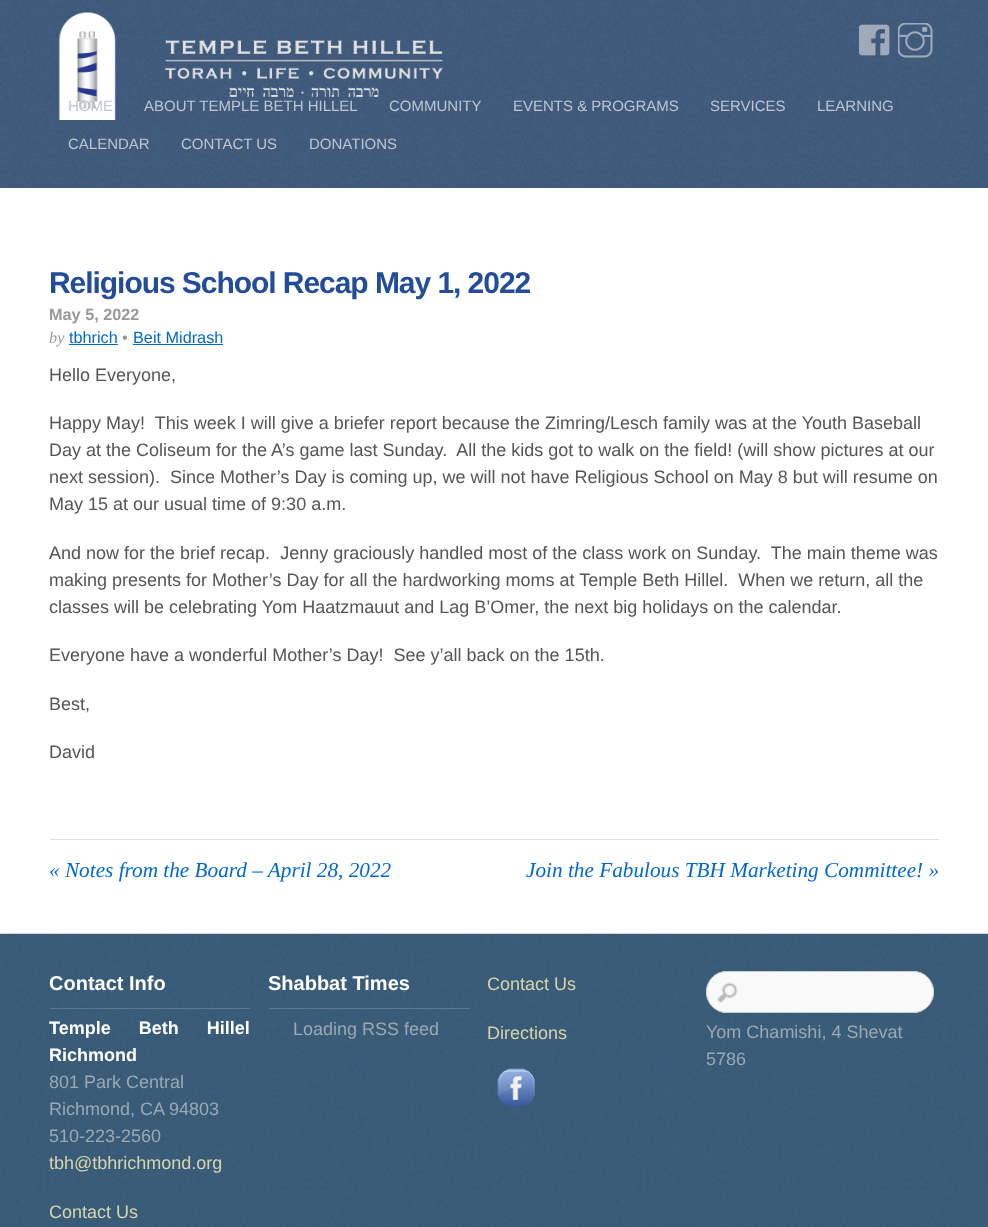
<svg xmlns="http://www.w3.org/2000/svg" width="988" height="1227">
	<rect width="100%" height="100%" fill="#FFFFFF" />
	<image x="0" y="0" width="988" height="188" href="assets/img1.png" />
	<image x="58" y="12" width="385" height="108" href="assets/img2.png" />
	<image x="859" y="24" width="31" height="32" href="assets/img3.png" />
	<image x="898" y="23" width="35" height="35" href="assets/img4.png" />
	<g font-family="Liberation Sans" font-size="15" fill="#BFC5D1">
		<text x="68" y="111">HOME</text>
		<text x="144" y="111">ABOUT TEMPLE BETH HILLEL</text>
		<text x="389" y="111">COMMUNITY</text>
		<text x="513" y="111">EVENTS &amp; PROGRAMS</text>
		<text x="710" y="111">SERVICES</text>
		<text x="817" y="111">LEARNING</text>
		<text x="68" y="149">CALENDAR</text>
		<text x="181" y="149">CONTACT US</text>
		<text x="309" y="149">DONATIONS</text>
	</g>
	<text x="49" y="293" font-family="Liberation Sans" font-size="30" font-weight="700" letter-spacing="-1.05" fill="#234D98">Religious School Recap May 1, 2022</text>
	<text x="49" y="320" font-family="Liberation Sans" font-size="16.25" font-weight="700" fill="#999999">May 5, 2022</text>
	<text x="49" y="343" font-family="Liberation Serif" font-size="16.25" font-style="italic" fill="#999999">by</text>
	<text x="69" y="343" font-family="Liberation Sans" font-size="16.25" fill="#0069CB">tbhrich</text>
	<rect x="69" y="344" width="49" height="1" fill="#0069CB" />
	<text x="122" y="343" font-family="Liberation Sans" font-size="16.25" fill="#999999">•</text>
	<text x="133" y="343" font-family="Liberation Sans" font-size="16.25" fill="#0069CB">Beit Midrash</text>
	<rect x="133" y="344" width="90" height="1" fill="#0069CB" />
	<g font-family="Liberation Sans" font-size="18" fill="#555555">
		<text x="49" y="381">Hello Everyone,</text>
		<text x="49" y="429" xml:space="preserve">Happy May!  This week I will give a briefer report because the Zimring/Lesch family was at the Youth Baseball</text>
		<text x="49" y="456" xml:space="preserve">Day at the Coliseum for the A’s game last Sunday.  All the kids got to walk on the field! (will show pictures at our</text>
		<text x="49" y="483" xml:space="preserve">next session).  Since Mother’s Day is coming up, we will not have Religious School on May 8 but will resume on</text>
		<text x="49" y="510">May 15 at our usual time of 9:30 a.m.</text>
		<text x="49" y="559" xml:space="preserve">And now for the brief recap.  Jenny graciously handled most of the class work on Sunday.  The main theme was</text>
		<text x="49" y="586" xml:space="preserve">making presents for Mother’s Day for all the hardworking moms at Temple Beth Hillel.  When we return, all the</text>
		<text x="49" y="613">classes will be celebrating Yom Haatzmauut and Lag B’Omer, the next big holidays on the calendar.</text>
		<text x="49" y="661" xml:space="preserve">Everyone have a wonderful Mother’s Day!  See y’all back on the 15th.</text>
		<text x="49" y="710">Best,</text>
		<text x="49" y="758">David</text>
	</g>
	<rect x="50" y="839" width="889" height="1" fill="#DDDDDD" />
	<g font-family="Liberation Serif" font-size="21.25" font-style="italic" fill="#0069CB">
		<text x="49" y="877">« Notes from the Board – April 28, 2022</text>
		<text x="526" y="877">Join the Fabulous TBH Marketing Committee! »</text>
	</g>
	<image x="0" y="933" width="988" height="294" href="assets/img5.png" />
	<rect x="50" y="1008" width="200" height="1" fill="#60778C" />
	<text x="49" y="990" font-family="Liberation Sans" font-size="20" font-weight="700" fill="#FFFFFF">Contact Info</text>
	<g font-family="Liberation Sans" font-size="18" font-weight="700" fill="#FFFFFF">
		<text x="49" y="1034" word-spacing="23">Temple Beth Hillel</text>
		<text x="49" y="1061">Richmond</text>
	</g>
	<g font-family="Liberation Sans" font-size="18" fill="#9CA8B3">
		<text x="49" y="1088">801 Park Central</text>
		<text x="49" y="1115">Richmond, CA 94803</text>
		<text x="49" y="1142">510-223-2560</text>
	</g>
	<g font-family="Liberation Sans" font-size="18" fill="#D8D4AB">
		<text x="49" y="1169">tbh@tbhrichmond.org</text>
		<text x="49" y="1218">Contact Us</text>
	</g>
	<rect x="269" y="1008" width="201" height="1" fill="#60778C" />
	<text x="268" y="990" font-family="Liberation Sans" font-size="20" font-weight="700" fill="#FFFFFF">Shabbat Times</text>
	<text x="293" y="1035" font-family="Liberation Sans" font-size="18" fill="#9CA8B3">Loading RSS feed</text>
	<g font-family="Liberation Sans" font-size="18" fill="#D8D4AB">
		<text x="487" y="990">Contact Us</text>
		<text x="487" y="1039">Directions</text>
	</g>
	<image x="497" y="1068" width="38" height="39" href="assets/img6.png" />
	<rect x="706" y="971" width="228" height="42" rx="21" fill="#F9F9F9" />
	<image x="717" y="982" width="21" height="21" href="assets/img7.png" />
	<rect x="706.5" y="971.5" width="227" height="41" rx="20.5" fill="none" stroke="#CCCCCC" />
	<g font-family="Liberation Sans" font-size="18" fill="#9CA8B3">
		<text x="706" y="1038">Yom Chamishi, 4 Shevat</text>
		<text x="706" y="1065">5786</text>
	</g>
</svg>
